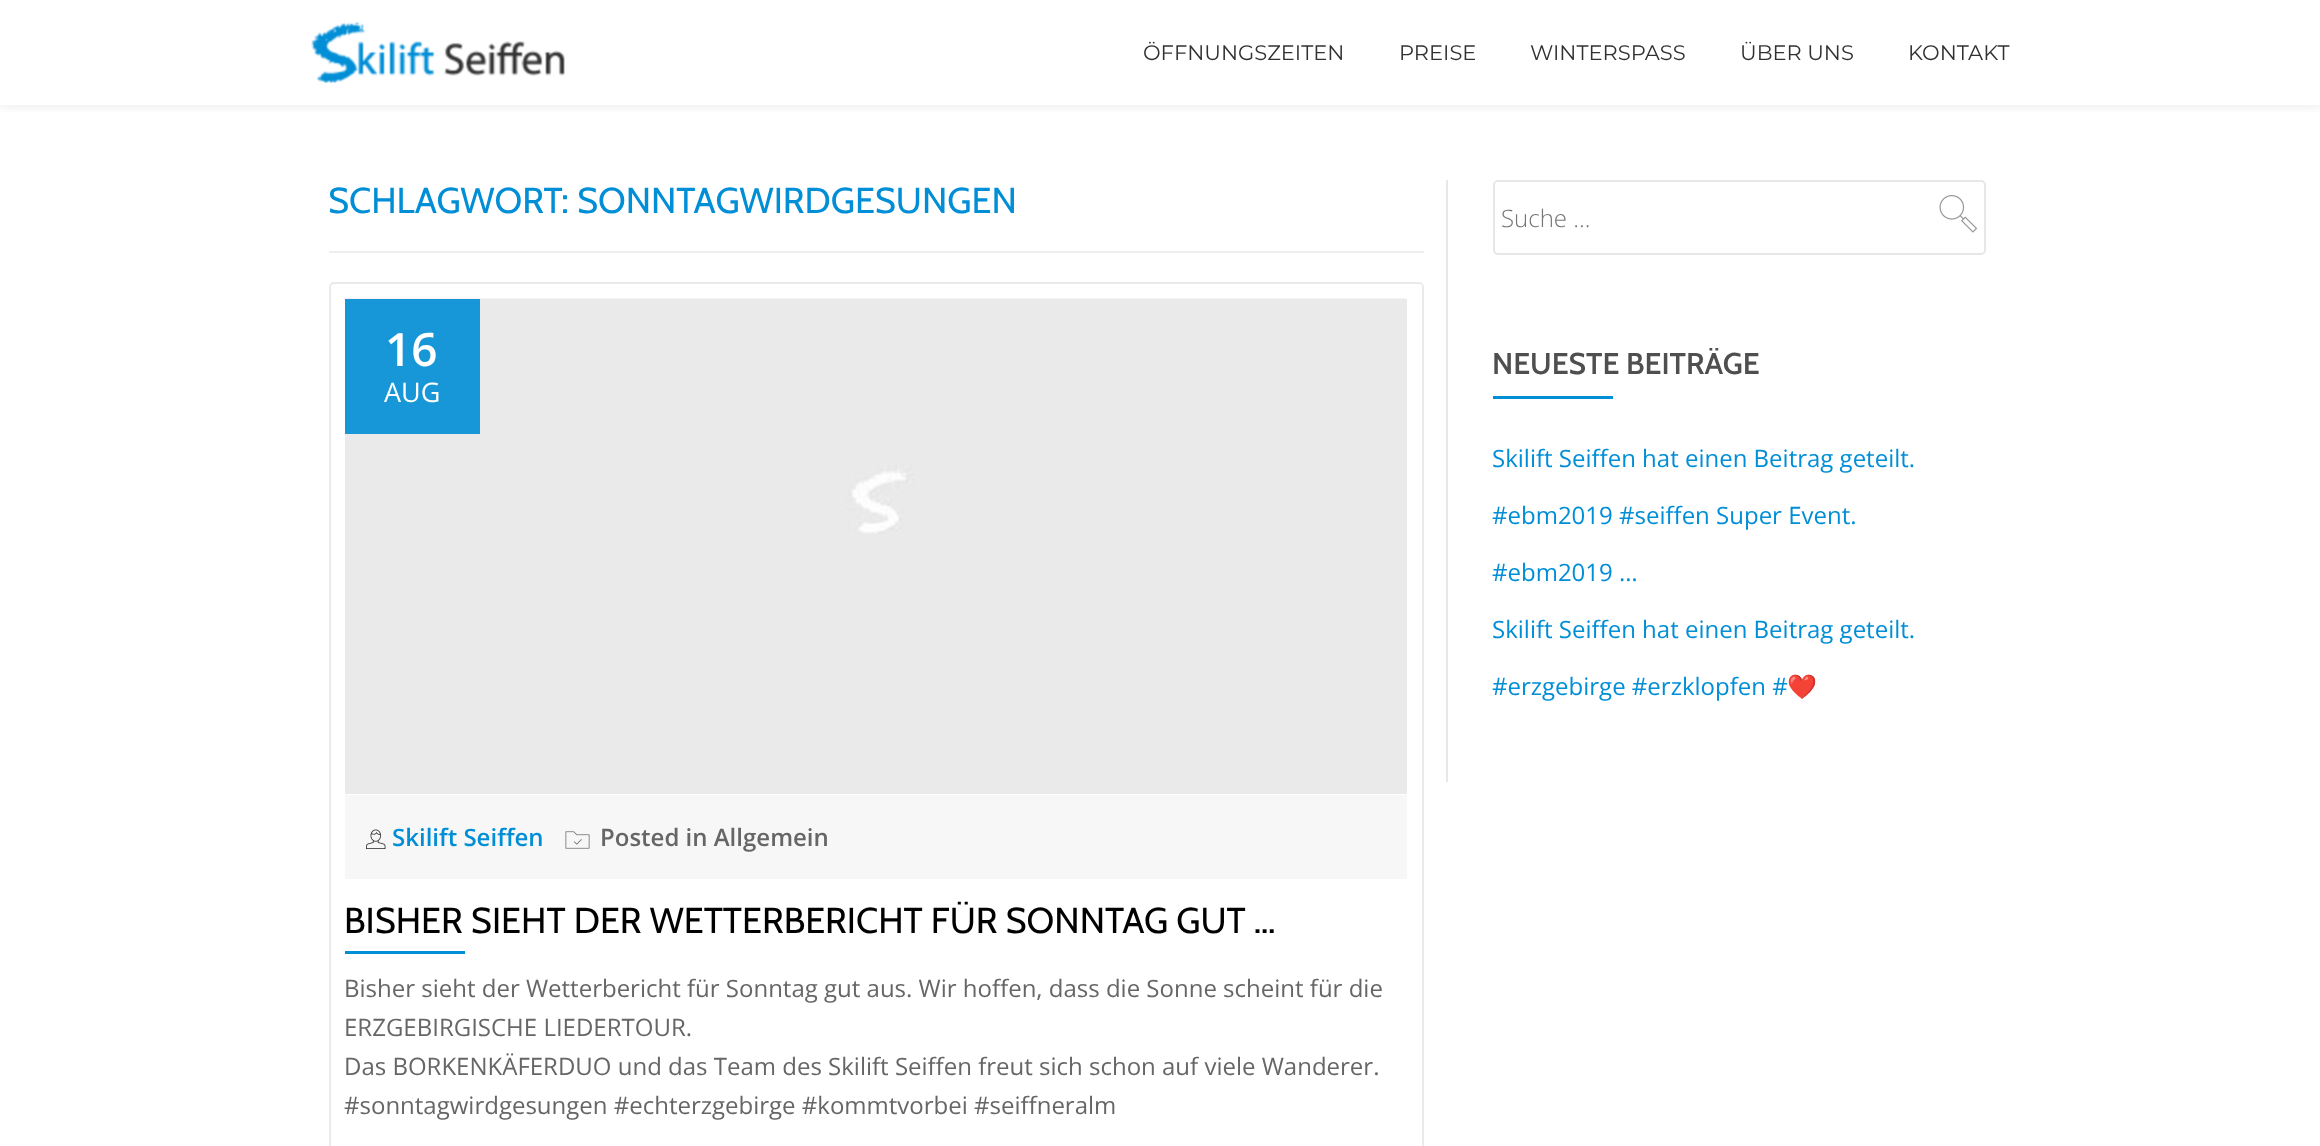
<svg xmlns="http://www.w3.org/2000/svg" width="2320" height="1146">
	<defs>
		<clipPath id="clip1"><rect x="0" y="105" width="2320" height="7" /></clipPath>
	</defs>
	<rect width="100%" height="100%" fill="#FFFFFF" />
	<g clip-path="url(#clip1)">
		<rect x="0" y="3" width="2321" height="105" fill="#323232" fill-opacity="0.08" filter="blur(6px)" />
	</g>
	<image x="311" y="22" width="254" height="61" href="assets/img1.png" />
	<g font-family="Montserrat" font-size="21" fill="#313131">
		<text x="1143" y="60">ÖFFNUNGSZEITEN</text>
		<text x="1399" y="60">PREISE</text>
		<text x="1530" y="60">WINTERSPASS</text>
		<text x="1740" y="60">ÜBER UNS</text>
		<text x="1908" y="60">KONTAKT</text>
	</g>
	<rect x="329" y="251" width="1095" height="2" fill="#EEEEEE" />
	<text x="328" y="213" font-family="Cabin" font-size="36" fill="#008ED6">SCHLAGWORT: SONNTAGWIRDGESUNGEN</text>
	<rect x="330" y="283" width="1093" height="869" rx="4" fill="none" stroke="#EAEAEA" stroke-width="2" />
	<rect x="345" y="299" width="1062" height="495" fill="#EAEAEA" />
	<image x="345" y="298" width="1061" height="236" href="assets/img2.png" />
	<rect x="345" y="299" width="135" height="135" fill="#1797D8" />
	<text x="385" y="366" font-family="Open Sans" font-size="46" font-weight="600" fill="#FFFFFF">16</text>
	<text x="384" y="402" font-family="Open Sans" font-size="27" fill="#FFFFFF">AUG</text>
	<rect x="345" y="795" width="1062" height="84" fill="#F7F7F7" />
	<image x="366" y="829" width="20" height="20" href="assets/img3.png" />
	<text x="392" y="846" font-family="Open Sans" font-size="24" font-weight="600" fill="#008ED6">Skilift Seiffen</text>
	<image x="565" y="831" width="25" height="18" href="assets/img4.png" />
	<text x="600" y="846" font-family="Open Sans" font-size="24" font-weight="600" fill="#666666">Posted in Allgemein</text>
	<text x="344" y="933" font-family="Cabin" font-size="36" fill="#000000">BISHER SIEHT DER WETTERBERICHT FÜR SONNTAG GUT …</text>
	<rect x="345" y="951" width="120" height="3" fill="#008ED6" />
	<g font-family="Open Sans" font-size="24" fill="#666666">
		<text x="344" y="997">Bisher sieht der Wetterbericht für Sonntag gut aus. Wir hoffen, dass die Sonne scheint für die</text>
		<text x="344" y="1036">ERZGEBIRGISCHE LIEDERTOUR.</text>
		<text x="344" y="1075">Das BORKENKÄFERDUO und das Team des Skilift Seiffen freut sich schon auf viele Wanderer.</text>
		<text x="344" y="1114">#sonntagwirdgesungen #echterzgebirge #kommtvorbei #seiffneralm</text>
	</g>
	<rect x="1446" y="180" width="2" height="602" fill="#E7E7E7" />
	<rect x="1494" y="181" width="491" height="73" rx="4" fill="none" stroke="#E7E7E7" stroke-width="2" />
	<text x="1501" y="227" font-family="Open Sans" font-size="24" font-weight="300" fill="#757575">Suche …</text>
	<image x="1939" y="195" width="39" height="38" href="assets/img5.png" />
	<text x="1492" y="374" font-family="Cabin" font-size="30" font-weight="600" fill="#4F4F4F">NEUESTE BEITRÄGE</text>
	<rect x="1493" y="396" width="120" height="3" fill="#008ED6" />
	<g font-family="Open Sans" font-size="24" fill="#008ED6">
		<text x="1492" y="467">Skilift Seiffen hat einen Beitrag geteilt.</text>
		<text x="1492" y="524">#ebm2019 #seiffen Super Event.</text>
		<text x="1492" y="581">#ebm2019 …</text>
		<text x="1492" y="638">Skilift Seiffen hat einen Beitrag geteilt.</text>
		<text x="1492" y="695">#erzgebirge #erzklopfen #</text>
	</g>
	<text x="1787" y="695" font-family="Noto Color Emoji" font-size="24" fill="#008ED6">❤️</text>
</svg>
